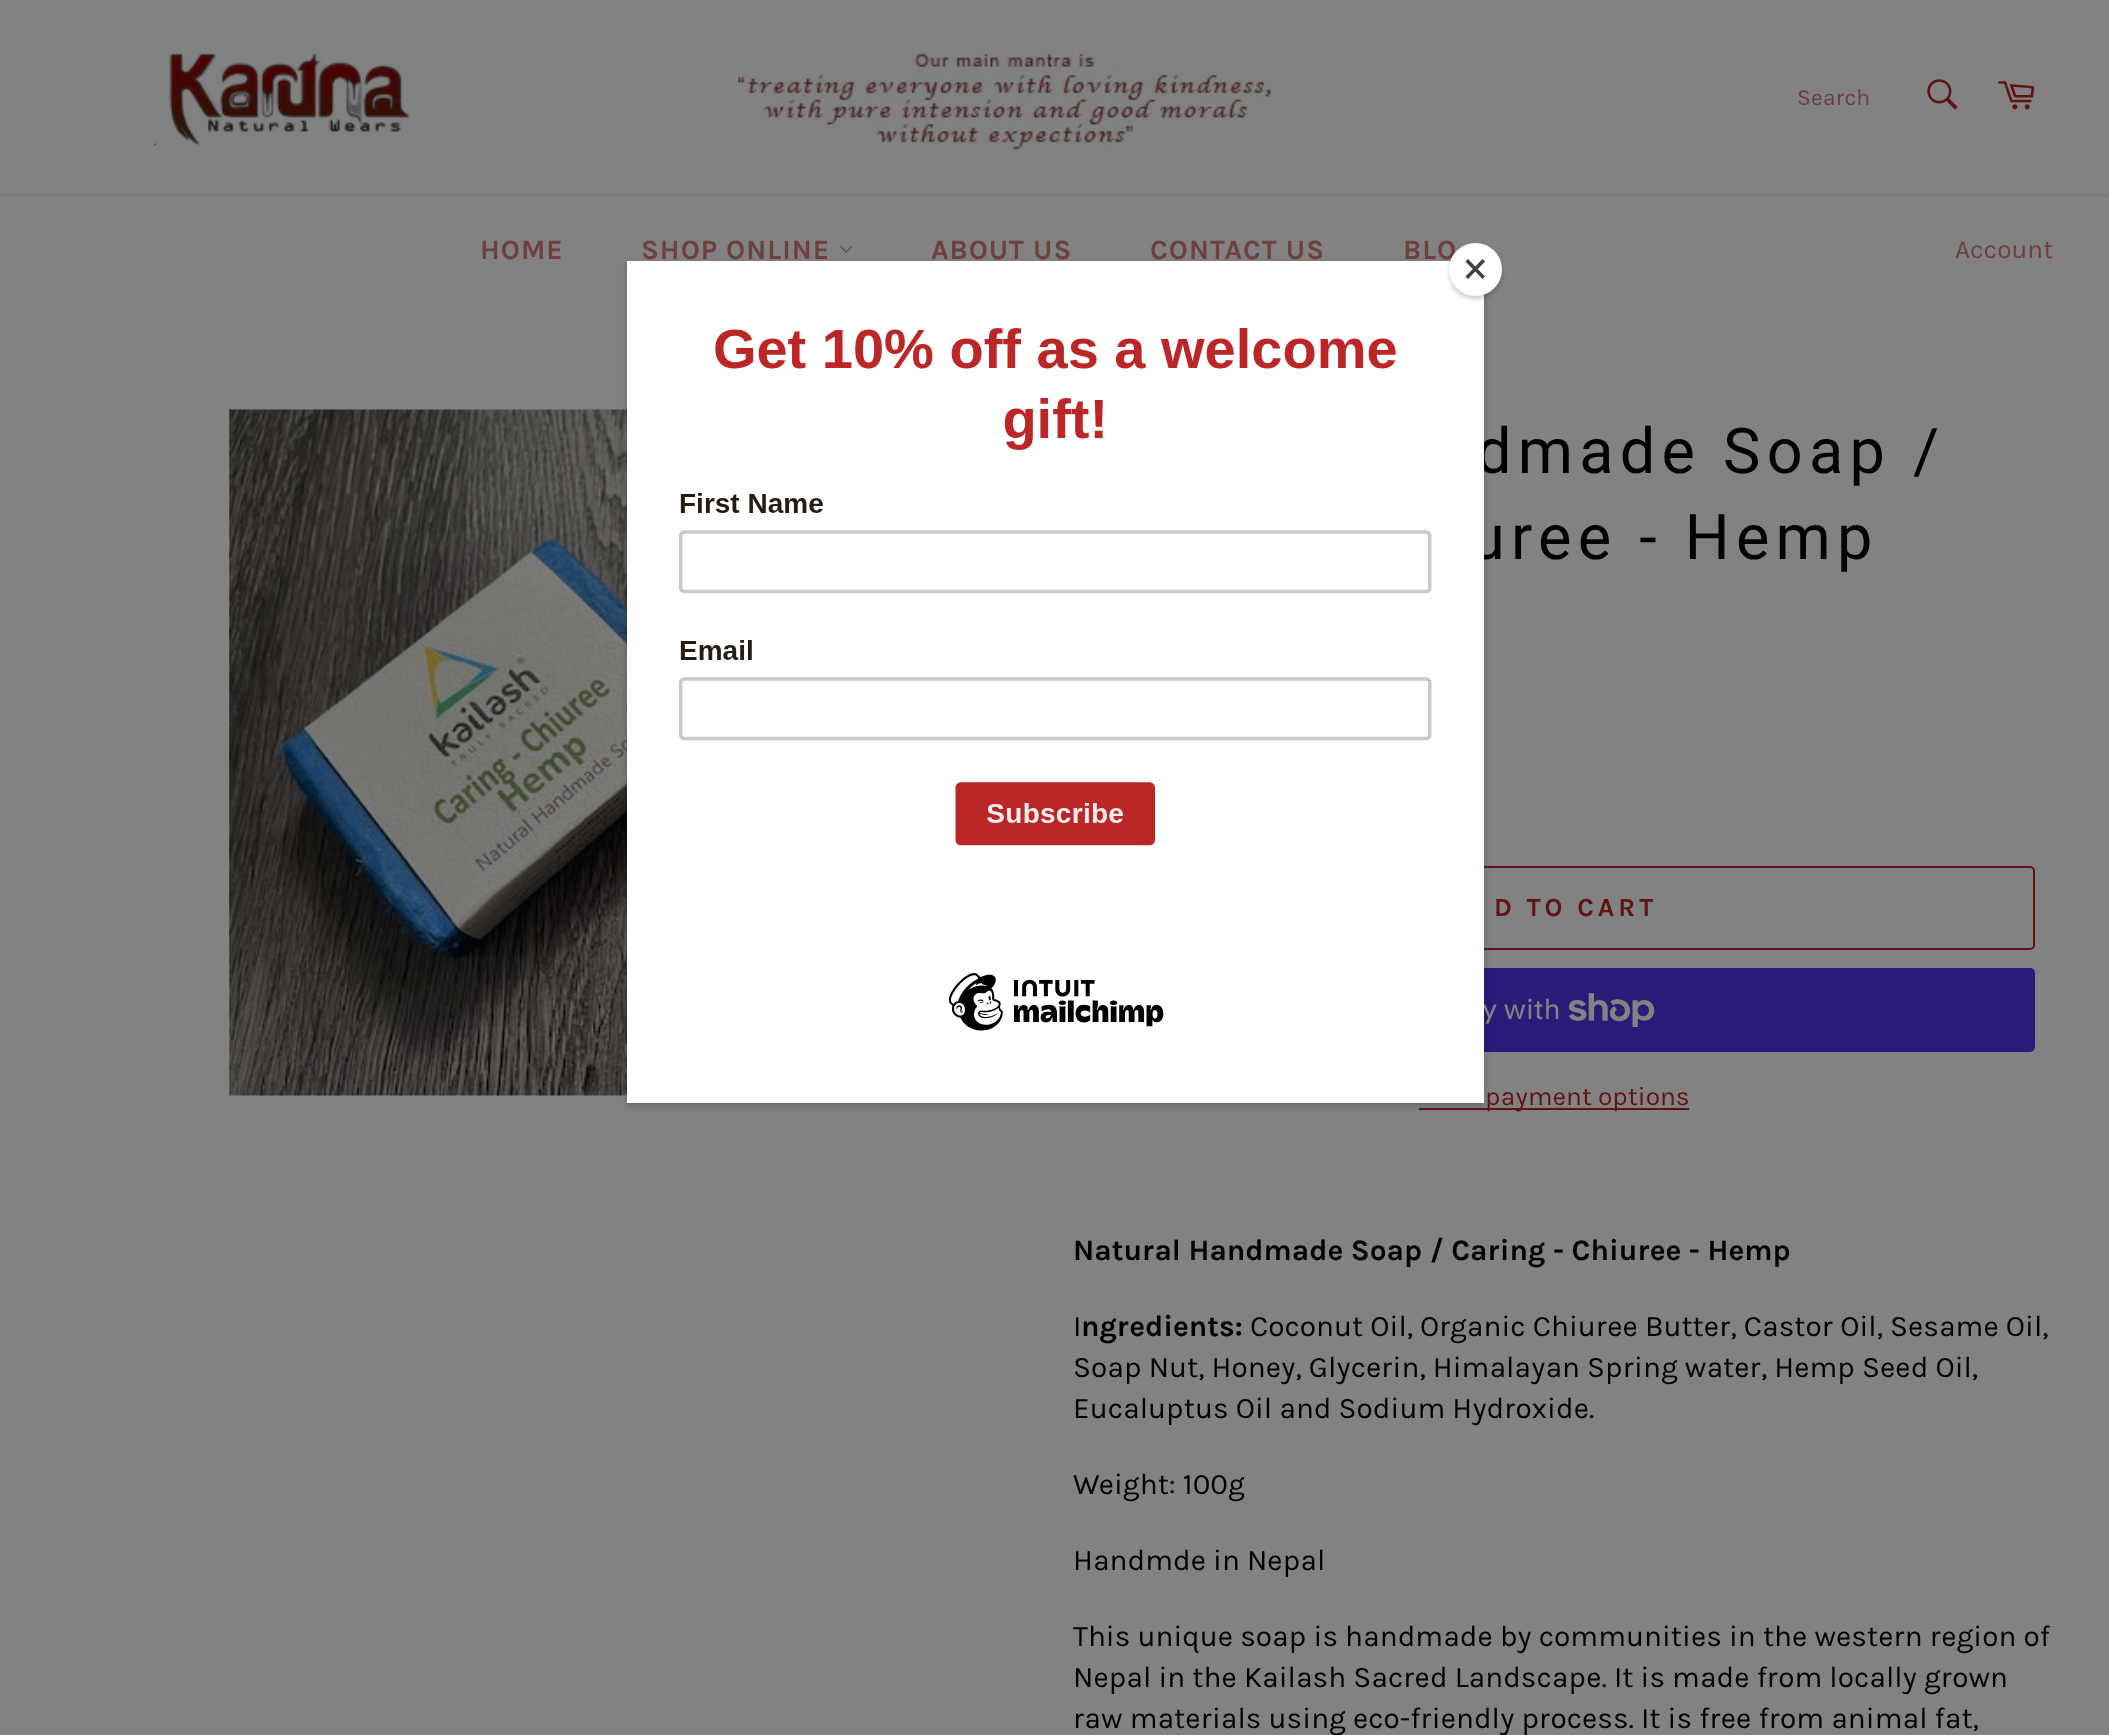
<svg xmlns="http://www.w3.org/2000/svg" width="2109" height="1735">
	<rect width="100%" height="100%" fill="#828282" />
	<image x="154" y="49" width="1120" height="110" href="assets/img1.png" />
	<text x="1797" y="105" font-family="Karla" font-size="23" fill="#6E4040">Search</text>
	<image x="1927" y="79" width="31" height="31" href="assets/img2.png" />
	<image x="1998" y="81" width="37" height="29" href="assets/img3.png" />
	<rect x="0" y="194" width="2109" height="2" fill="#7B7B7B" />
	<g font-family="Karla" font-size="28" font-weight="700" letter-spacing="1" fill="#6E4040">
		<text x="480" y="259">HOME</text>
		<text x="641" y="259">SHOP ONLINE</text>
	</g>
	<image x="840" y="245" width="13" height="8" href="assets/img4.png" />
	<g font-family="Karla" font-size="28" font-weight="700" letter-spacing="1" fill="#6E4040">
		<text x="931" y="259">ABOUT US</text>
		<text x="1150" y="259">CONTACT US</text>
		<text x="1403" y="259">BLO</text>
	</g>
	<text x="1955" y="258" font-family="Karla" font-size="26.25" fill="#6E4040">Account</text>
	<image x="229" y="409" width="398" height="687" href="assets/img6.png" />
	<rect x="1074" y="867" width="960" height="82" rx="4" fill="none" stroke="#601313" stroke-width="2" />
	<rect x="1073" y="968" width="962" height="84" rx="5" fill="#2B1A78" />
	<rect x="1419" y="1108" width="270" height="2" fill="#601313" />
	<rect x="627" y="264" width="857" height="842" fill="#000000" fill-opacity="0.2" filter="blur(3.5px)" />
	<g font-family="Roboto" font-size="63" letter-spacing="6.25" fill="#020202">
		<text x="1476" y="473">dmade Soap /</text>
		<text x="1470" y="559">uree - Hemp</text>
	</g>
	<text x="1482" y="1019" font-family="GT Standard" font-size="28" fill="#828282">y with</text>
	<image x="627" y="261" width="857" height="842" href="assets/img5.png" />
	<rect x="1449" y="247" width="53" height="52" rx="26" fill="#000000" fill-opacity="0.2" filter="blur(2px)" />
	<circle cx="1475.5" cy="269.5" r="26.5" fill="#FFFFFF" />
	<path d="M1482.5 259L1485 261.5L1468 279L1465.5 276.5Z" fill="#414141" />
	<path d="M1465.5 261.5L1468 259L1485 276.5L1482.5 279Z" fill="#414141" />
	<text x="1494" y="916" font-family="Karla" font-size="26.25" font-weight="700" letter-spacing="4" fill="#601313">D TO CART</text>
	<image x="1569" y="993" width="86" height="34" href="assets/img7.png" />
	<text x="1485" y="1105" font-family="Karla" font-size="26.25" fill="#601313">payment options</text>
	<text x="1073" y="1260" font-family="Karla" font-size="29.75" font-weight="700" fill="#020202">Natural Handmade Soap / Caring - Chiuree - Hemp</text>
	<text x="1073" y="1336" font-family="Karla" font-size="29.75" fill="#020202">I</text>
	<text x="1081" y="1336" font-family="Karla" font-size="29.75" font-weight="700" fill="#020202">ngredients:</text>
	<g font-family="Karla" font-size="29.75" fill="#020202">
		<text x="1250" y="1336">Coconut Oil, Organic Chiuree Butter, Castor Oil, Sesame Oil,</text>
		<text x="1073" y="1377">Soap Nut, Honey, Glycerin, Himalayan Spring water, Hemp Seed Oil,</text>
		<text x="1073" y="1418">Eucaluptus Oil and Sodium Hydroxide.</text>
		<text x="1073" y="1494">Weight: 100g</text>
		<text x="1073" y="1570">Handmde in Nepal</text>
		<text x="1073" y="1646">This unique soap is handmade by communities in the western region of</text>
		<text x="1073" y="1687">Nepal in the Kailash Sacred Landscape. It is made from locally grown</text>
		<text x="1073" y="1728">raw materials using eco-friendly process. It is free from animal fat,</text>
	</g>
</svg>
